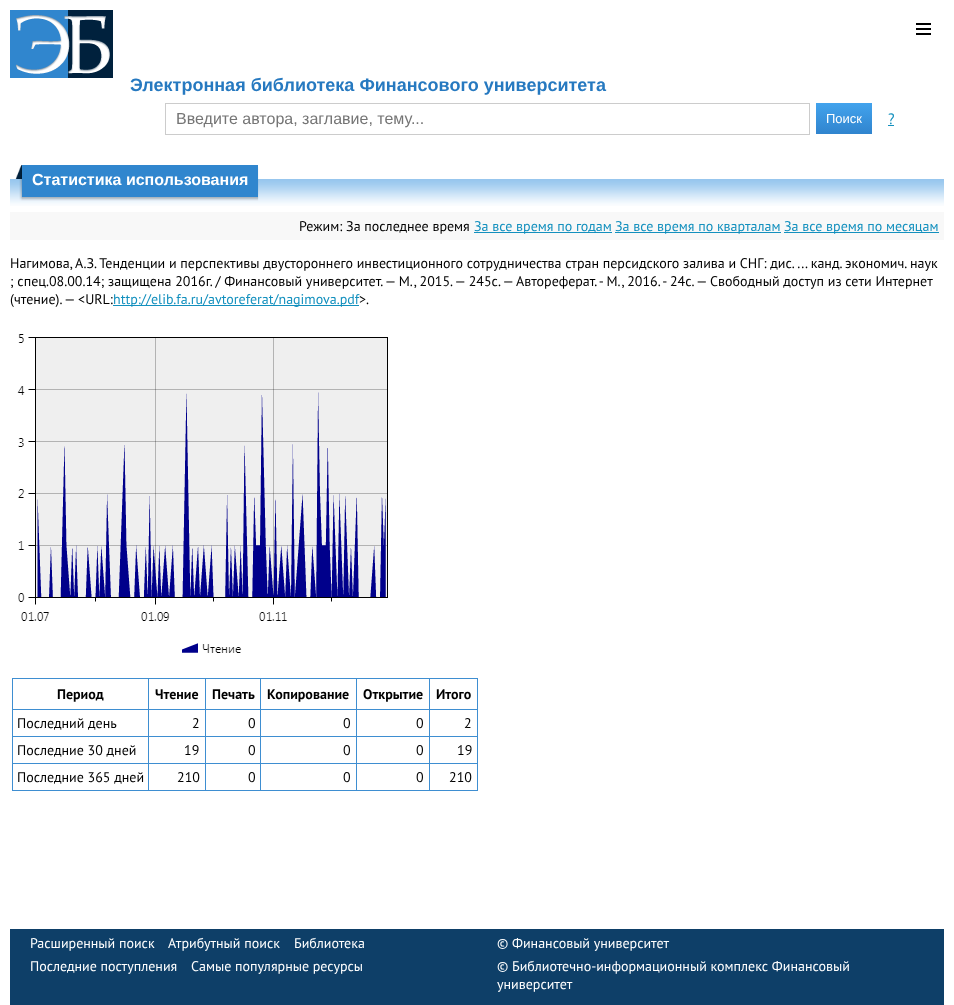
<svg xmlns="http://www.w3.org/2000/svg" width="954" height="1005">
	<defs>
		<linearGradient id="g1" gradientUnits="userSpaceOnUse" x1="844" y1="103" x2="844" y2="134"><stop offset="0" stop-color="#42A3ED" /><stop offset="1" stop-color="#3084CE" /></linearGradient>
	</defs>
	<rect width="100%" height="100%" fill="#FFFFFF" />
	<image x="10" y="10" width="103" height="68" href="assets/img1.png" />
	<rect x="916" y="23" width="15" height="2" fill="#000000" />
	<rect x="916" y="28" width="15" height="2" fill="#000000" />
	<rect x="916" y="33" width="15" height="2" fill="#000000" />
	<text x="130" y="91" font-family="Liberation Sans" font-size="18" font-weight="700" fill="#2679C0">Электронная библиотека Финансового университета</text>
	<rect x="165.5" y="103.5" width="644" height="31" fill="none" stroke="#CCCCCC" />
	<text x="176" y="124" font-family="Liberation Sans" font-size="16" fill="#757575">Введите автора, заглавие, тему...</text>
	<rect x="816" y="103" width="56" height="31" fill="url(#g1)" />
	<text x="826" y="123" font-family="Liberation Sans" font-size="13" fill="#FFFFFF">Поиск</text>
	<text x="888" y="124" font-family="PT Sans" font-size="15" fill="#1390BE">?</text>
	<rect x="888" y="125" width="6" height="1" fill="#1390BE" />
	<image x="10" y="165" width="12" height="41" href="assets/img2.png" />
	<image x="22" y="165" width="236" height="41" href="assets/img3.png" />
	<text x="32" y="185" font-family="Liberation Sans" font-size="16" font-weight="700" fill="#FFFFFF">Статистика использования</text>
	<image x="258" y="167" width="2" height="39" href="assets/img4.png" />
	<image x="260" y="179" width="684" height="27" href="assets/img5.png" />
	<rect x="10" y="212" width="934" height="28" fill="#F8F8F8" />
	<text x="299" y="231" font-family="PT Sans" font-size="14" fill="#000000">Режим: За последнее время</text>
	<rect x="474" y="232" width="138" height="1" fill="#1390BE" />
	<text x="474" y="231" font-family="PT Sans" font-size="14" fill="#1390BE">За все время по годам</text>
	<rect x="615" y="232" width="166" height="1" fill="#1390BE" />
	<text x="615" y="231" font-family="PT Sans" font-size="14" fill="#1390BE">За все время по кварталам</text>
	<rect x="784" y="232" width="155" height="1" fill="#1390BE" />
	<text x="784" y="231" font-family="PT Sans" font-size="14" fill="#1390BE">За все время по месяцам</text>
	<g font-family="PT Sans" font-size="14" fill="#000000">
		<text x="10" y="268">Нагимова, А.З. Тенденции и перспективы двустороннего инвестиционного сотрудничества стран персидского залива и СНГ: дис. ... канд. экономич. наук</text>
		<text x="10" y="286">; спец.08.00.14; защищена 2016г. / Финансовый университет. — М., 2015. — 245с. — Автореферат. - М., 2016. - 24с. — Свободный доступ из сети Интернет</text>
		<text x="10" y="304">(чтение). — &lt;URL:</text>
	</g>
	<rect x="113" y="305" width="246" height="1" fill="#1390BE" />
	<text x="113" y="304" font-family="PT Sans" font-size="14" fill="#1390BE">http://elib.fa.ru/avtoreferat/nagimova.pdf</text>
	<text x="359" y="304" font-family="PT Sans" font-size="14" fill="#000000">&gt;.</text>
	<image x="17" y="334" width="371" height="319" href="assets/img6.png" />
	<rect x="12" y="678" width="466" height="1" fill="#3E8ED1" />
	<rect x="477" y="678" width="1" height="113" fill="#3E8ED1" />
	<rect x="12" y="790" width="466" height="1" fill="#3E8ED1" />
	<rect x="12" y="678" width="1" height="113" fill="#3E8ED1" />
	<text x="57" y="699" font-family="PT Sans" font-size="14" font-weight="700" fill="#000000">Период</text>
	<rect x="429" y="709" width="49" height="1" fill="#3E8ED1" />
	<rect x="429" y="736" width="49" height="1" fill="#3E8ED1" />
	<rect x="429" y="763" width="49" height="1" fill="#3E8ED1" />
	<rect x="429" y="763" width="1" height="28" fill="#3E8ED1" />
	<rect x="356" y="763" width="74" height="1" fill="#3E8ED1" />
	<rect x="429" y="736" width="1" height="28" fill="#3E8ED1" />
	<rect x="356" y="736" width="74" height="1" fill="#3E8ED1" />
	<rect x="429" y="709" width="1" height="28" fill="#3E8ED1" />
	<rect x="356" y="709" width="74" height="1" fill="#3E8ED1" />
	<rect x="356" y="763" width="1" height="28" fill="#3E8ED1" />
	<rect x="260" y="763" width="97" height="1" fill="#3E8ED1" />
	<rect x="356" y="736" width="1" height="28" fill="#3E8ED1" />
	<rect x="260" y="736" width="97" height="1" fill="#3E8ED1" />
	<rect x="356" y="709" width="1" height="28" fill="#3E8ED1" />
	<rect x="260" y="709" width="97" height="1" fill="#3E8ED1" />
	<rect x="260" y="763" width="1" height="28" fill="#3E8ED1" />
	<rect x="205" y="763" width="56" height="1" fill="#3E8ED1" />
	<rect x="260" y="736" width="1" height="28" fill="#3E8ED1" />
	<rect x="205" y="736" width="56" height="1" fill="#3E8ED1" />
	<rect x="260" y="709" width="1" height="28" fill="#3E8ED1" />
	<rect x="205" y="709" width="56" height="1" fill="#3E8ED1" />
	<rect x="205" y="763" width="1" height="28" fill="#3E8ED1" />
	<rect x="148" y="763" width="58" height="1" fill="#3E8ED1" />
	<rect x="205" y="736" width="1" height="28" fill="#3E8ED1" />
	<rect x="148" y="736" width="58" height="1" fill="#3E8ED1" />
	<rect x="205" y="709" width="1" height="28" fill="#3E8ED1" />
	<rect x="148" y="709" width="58" height="1" fill="#3E8ED1" />
	<rect x="148" y="763" width="1" height="28" fill="#3E8ED1" />
	<rect x="12" y="763" width="137" height="1" fill="#3E8ED1" />
	<rect x="148" y="736" width="1" height="28" fill="#3E8ED1" />
	<rect x="12" y="736" width="137" height="1" fill="#3E8ED1" />
	<rect x="148" y="709" width="1" height="28" fill="#3E8ED1" />
	<rect x="12" y="709" width="137" height="1" fill="#3E8ED1" />
	<rect x="148" y="678" width="1" height="32" fill="#3E8ED1" />
	<text x="155" y="699" font-family="PT Sans" font-size="14" font-weight="700" fill="#000000">Чтение</text>
	<rect x="205" y="678" width="1" height="32" fill="#3E8ED1" />
	<text x="212" y="699" font-family="PT Sans" font-size="14" font-weight="700" fill="#000000">Печать</text>
	<rect x="260" y="678" width="1" height="32" fill="#3E8ED1" />
	<text x="267" y="699" font-family="PT Sans" font-size="14" font-weight="700" fill="#000000">Копирование</text>
	<rect x="356" y="678" width="1" height="32" fill="#3E8ED1" />
	<text x="363" y="699" font-family="PT Sans" font-size="14" font-weight="700" fill="#000000">Открытие</text>
	<rect x="429" y="678" width="1" height="32" fill="#3E8ED1" />
	<text x="436" y="699" font-family="PT Sans" font-size="14" font-weight="700" fill="#000000">Итого</text>
	<g font-family="PT Sans" font-size="14" fill="#000000">
		<text x="17" y="728">Последний день</text>
		<text x="192" y="728">2</text>
		<text x="248" y="728">0</text>
		<text x="343" y="728">0</text>
		<text x="416" y="728">0</text>
		<text x="464" y="728">2</text>
		<text x="17" y="755">Последние 30 дней</text>
		<text x="184" y="755">19</text>
		<text x="248" y="755">0</text>
		<text x="343" y="755">0</text>
		<text x="416" y="755">0</text>
		<text x="457" y="755">19</text>
		<text x="17" y="782">Последние 365 дней</text>
		<text x="177" y="782">210</text>
		<text x="248" y="782">0</text>
		<text x="343" y="782">0</text>
		<text x="416" y="782">0</text>
		<text x="449" y="782">210</text>
	</g>
	<rect x="10" y="929" width="934" height="76" fill="#0E3F68" />
	<g font-family="PT Sans" font-size="14" fill="#FFFFFF">
		<text x="30" y="948">Расширенный поиск</text>
		<text x="168" y="948">Атрибутный поиск</text>
		<text x="294" y="948">Библиотека</text>
		<text x="30" y="971">Последние поступления</text>
		<text x="191" y="971">Самые популярные ресурсы</text>
		<text x="497" y="948">© Финансовый университет</text>
		<text x="497" y="971">© Библиотечно-информационный комплекс Финансовый</text>
		<text x="497" y="989">университет</text>
	</g>
</svg>
